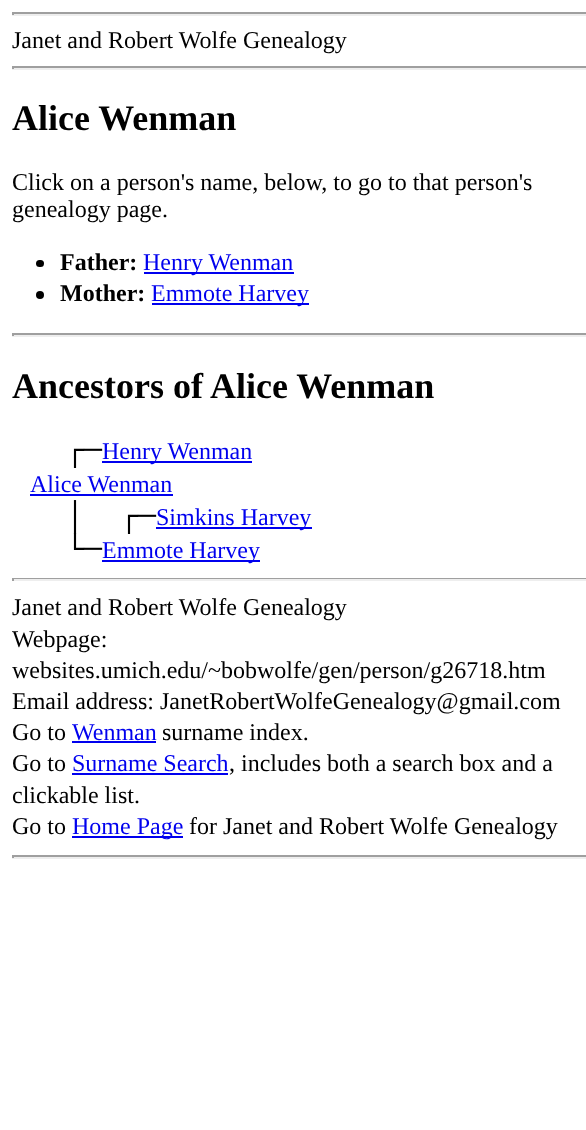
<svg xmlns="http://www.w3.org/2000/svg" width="586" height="1130">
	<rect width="100%" height="100%" fill="#FFFFFF" />
	<rect x="12" y="12" width="574" height="2" fill="#9F9F9F" />
	<rect x="12" y="14" width="574" height="2" fill="#EEEEEE" />
	<rect x="12" y="12" width="2" height="3" fill="#9F9F9F" />
	<text x="12" y="48" font-family="Liberation Serif" font-size="24" fill="#000000">Janet and Robert Wolfe Genealogy</text>
	<rect x="12" y="66" width="574" height="2" fill="#9F9F9F" />
	<rect x="12" y="68" width="574" height="2" fill="#EEEEEE" />
	<rect x="12" y="66" width="2" height="3" fill="#9F9F9F" />
	<text x="12" y="130" font-family="Liberation Serif" font-size="36" font-weight="700" fill="#000000">Alice Wenman</text>
	<g font-family="Liberation Serif" font-size="24" fill="#000000">
		<text x="12" y="190">Click on a person's name, below, to go to that person's</text>
		<text x="12" y="217">genealogy page.</text>
	</g>
	<rect x="36" y="260" width="8" height="7" rx="3.5" fill="#000000" />
	<text x="60" y="270" font-family="Liberation Serif" font-size="24" font-weight="700" fill="#000000">Father:</text>
	<rect x="144" y="272" width="150" height="2" fill="#0000EE" />
	<text x="143" y="270" font-family="Liberation Serif" font-size="24" fill="#0000EE">Henry Wenman</text>
	<circle cx="40" cy="295" r="4" fill="#000000" />
	<text x="60" y="301" font-family="Liberation Serif" font-size="24" font-weight="700" fill="#000000">Mother:</text>
	<rect x="152" y="303" width="157" height="2" fill="#0000EE" />
	<text x="151" y="301" font-family="Liberation Serif" font-size="24" fill="#0000EE">Emmote Harvey</text>
	<rect x="12" y="333" width="574" height="2" fill="#9F9F9F" />
	<rect x="12" y="335" width="574" height="2" fill="#EEEEEE" />
	<rect x="12" y="333" width="2" height="3" fill="#9F9F9F" />
	<text x="12" y="398" font-family="Liberation Serif" font-size="36" font-weight="700" fill="#000000">Ancestors of Alice Wenman</text>
	<text x="66" y="459" font-family="Liberation Mono" font-size="30" fill="#000000">┌─</text>
	<rect x="102" y="461" width="150" height="2" fill="#0000EE" />
	<g font-family="Liberation Serif" font-size="24" fill="#0000EE">
		<text x="102" y="459">Henry Wenman</text>
		<text x="30" y="492">Alice Wenman</text>
	</g>
	<rect x="30" y="494" width="143" height="2" fill="#0000EE" />
	<text x="66" y="525" font-family="Liberation Mono" font-size="30" fill="#000000" xml:space="preserve">│  ┌─</text>
	<rect x="156" y="527" width="156" height="2" fill="#0000EE" />
	<text x="156" y="525" font-family="Liberation Serif" font-size="24" fill="#0000EE">Simkins Harvey</text>
	<text x="66" y="558" font-family="Liberation Mono" font-size="30" fill="#000000">└─</text>
	<rect x="102" y="560" width="158" height="2" fill="#0000EE" />
	<text x="102" y="558" font-family="Liberation Serif" font-size="24" fill="#0000EE">Emmote Harvey</text>
	<rect x="12" y="578" width="574" height="1" fill="#9F9F9F" />
	<rect x="12" y="579" width="574" height="2" fill="#EEEEEE" />
	<rect x="12" y="578" width="2" height="3" fill="#9F9F9F" />
	<g font-family="Liberation Serif" font-size="24" fill="#000000">
		<text x="12" y="615">Janet and Robert Wolfe Genealogy</text>
		<text x="12" y="647">Webpage:</text>
		<text x="12" y="678">websites.umich.edu/~bobwolfe/gen/person/g26718.htm</text>
		<text x="12" y="709">Email address: JanetRobertWolfeGenealogy@gmail.com</text>
		<text x="12" y="740">Go to</text>
	</g>
	<text x="72" y="740" font-family="Liberation Serif" font-size="24" fill="#0000EE">Wenman</text>
	<rect x="72" y="741" width="84" height="2" fill="#0000EE" />
	<g font-family="Liberation Serif" font-size="24" fill="#000000">
		<text x="162" y="740">surname index.</text>
		<text x="12" y="771">Go to</text>
	</g>
	<text x="72" y="771" font-family="Liberation Serif" font-size="24" fill="#0000EE">Surname Search</text>
	<rect x="72" y="773" width="156" height="2" fill="#0000EE" />
	<g font-family="Liberation Serif" font-size="24" fill="#000000">
		<text x="229" y="771">, includes both a search box and a</text>
		<text x="12" y="803">clickable list.</text>
		<text x="12" y="834">Go to</text>
	</g>
	<rect x="72" y="836" width="111" height="2" fill="#0000EE" />
	<text x="72" y="834" font-family="Liberation Serif" font-size="24" fill="#0000EE">Home Page</text>
	<text x="189" y="834" font-family="Liberation Serif" font-size="24" fill="#000000">for Janet and Robert Wolfe Genealogy</text>
	<rect x="12" y="855" width="574" height="2" fill="#9F9F9F" />
	<rect x="12" y="857" width="574" height="2" fill="#EEEEEE" />
	<rect x="12" y="855" width="2" height="3" fill="#9F9F9F" />
</svg>
